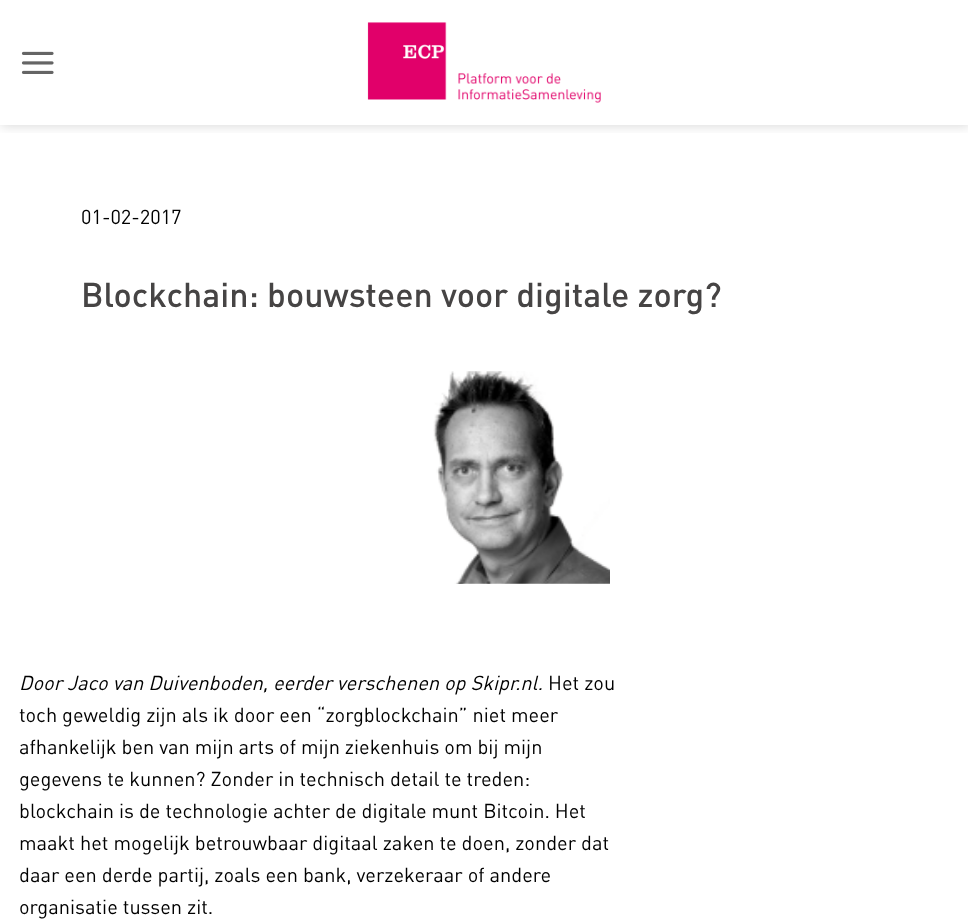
<svg xmlns="http://www.w3.org/2000/svg" width="968" height="922">
	<defs>
		<clipPath id="clip1"><rect x="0" y="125" width="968" height="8" /></clipPath>
	</defs>
	<rect width="100%" height="100%" fill="#FFFFFF" />
	<g clip-path="url(#clip1)">
		<rect x="1" y="1" width="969" height="125" fill="#000000" fill-opacity="0.15" filter="blur(6px)" />
	</g>
	<image x="21" y="51" width="33" height="23" href="assets/img1.png" />
	<image x="367" y="22" width="234" height="81" href="assets/img2.png" />
	<text x="81" y="224" font-family="DIN" font-size="20" fill="#000000">01-02-2017</text>
	<text x="81" y="307" font-family="DIN" font-size="34" font-weight="500" fill="#464444">Blockchain: bouwsteen voor digitale zorg?</text>
	<image x="433" y="371" width="177" height="213" href="assets/img3.png" />
	<text x="19" y="690" font-family="DIN" font-size="20" font-style="italic" fill="#000000">Door Jaco van Duivenboden, eerder verschenen op Skipr.nl.</text>
	<g font-family="DIN" font-size="20" fill="#000000">
		<text x="548" y="690">Het zou</text>
		<text x="19" y="722">toch geweldig zijn als ik door een “zorgblockchain” niet meer</text>
		<text x="19" y="754">afhankelijk ben van mijn arts of mijn ziekenhuis om bij mijn</text>
		<text x="19" y="786">gegevens te kunnen? Zonder in technisch detail te treden:</text>
		<text x="19" y="818">blockchain is de technologie achter de digitale munt Bitcoin. Het</text>
		<text x="19" y="850">maakt het mogelijk betrouwbaar digitaal zaken te doen, zonder dat</text>
		<text x="19" y="882">daar een derde partij, zoals een bank, verzekeraar of andere</text>
		<text x="19" y="914">organisatie tussen zit.</text>
	</g>
</svg>
